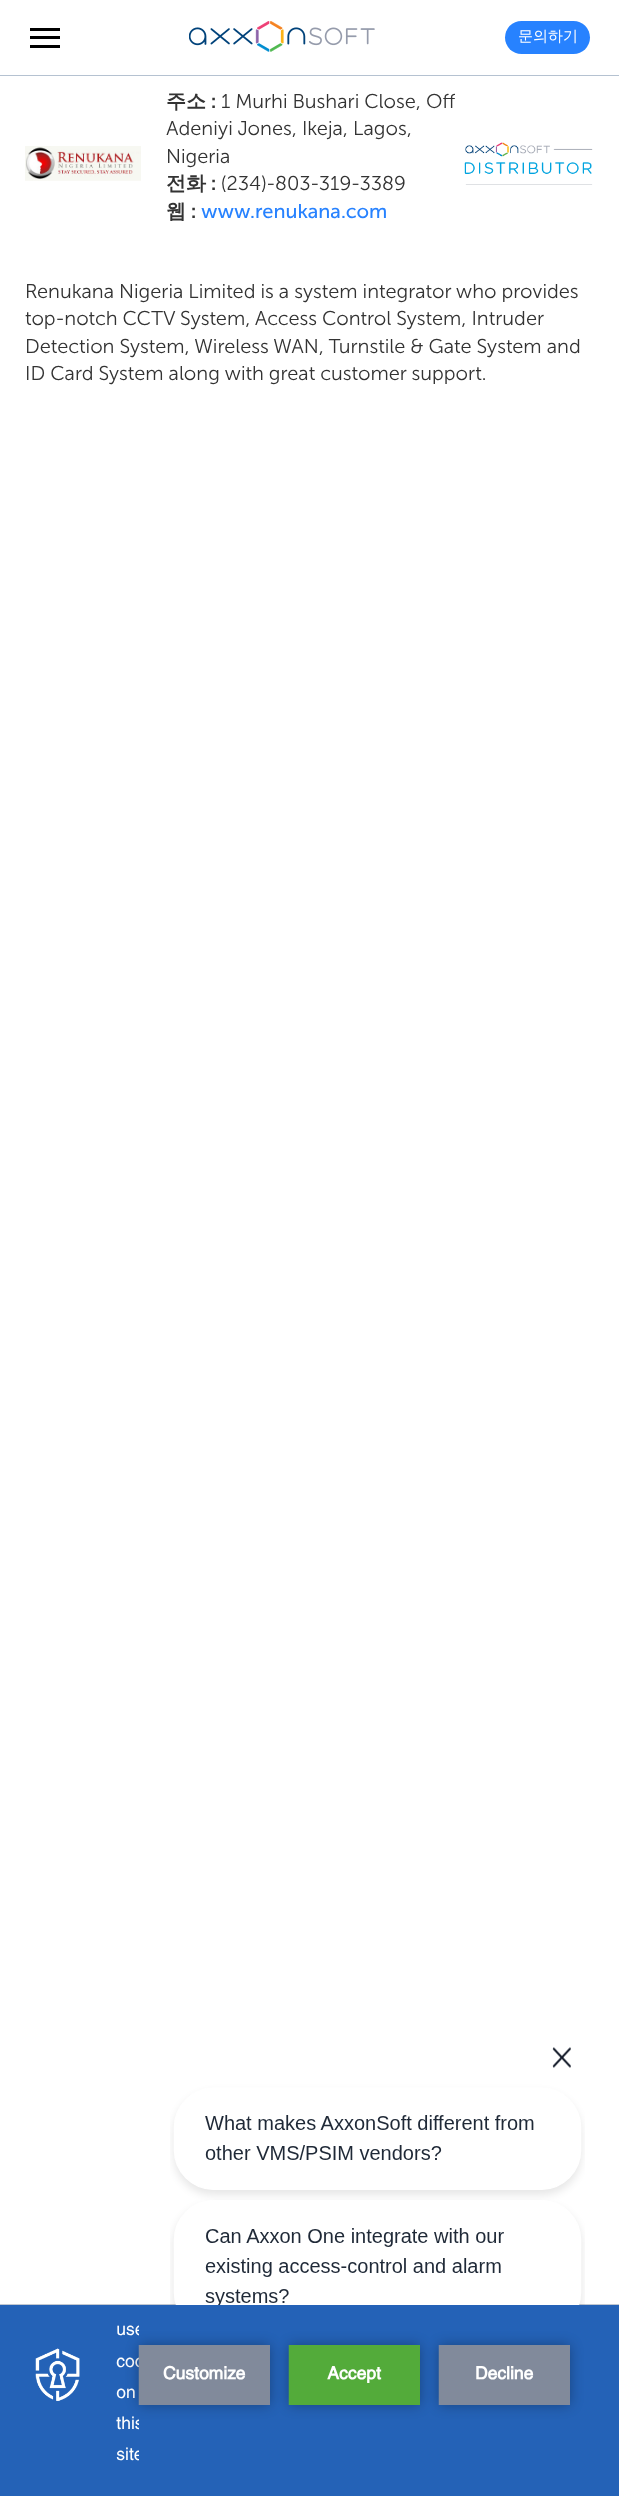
<svg xmlns="http://www.w3.org/2000/svg" width="619" height="2496">
	<rect width="100%" height="100%" fill="#FFFFFF" />
	<rect x="0" y="75" width="619" height="1" fill="#B5C2D1" />
	<rect x="30" y="36" width="30" height="3" fill="#000000" />
	<rect x="30" y="28" width="30" height="3" fill="#000000" />
	<rect x="30" y="45" width="30" height="3" fill="#000000" />
	<image x="189" y="21" width="186" height="31" href="assets/img1.png" />
	<rect x="505" y="21" width="85" height="33" rx="16.5" fill="#2782FF" />
	<text x="518" y="41" font-family="WenQuanYi Zen Hei" font-size="15" font-weight="500" fill="#FFFFFF">문의하기</text>
	<image x="25" y="146" width="116" height="35" href="assets/img2.png" />
	<text x="166" y="108" font-family="WenQuanYi Zen Hei" font-size="20" font-weight="700" fill="#333333">주소</text>
	<text x="211" y="108" font-family="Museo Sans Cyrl" font-size="20" font-weight="600" fill="#333333">:</text>
	<g font-family="Museo Sans Cyrl" font-size="20" font-weight="300" fill="#333333">
		<text x="221" y="108">1 Murhi Bushari Close, Off</text>
		<text x="166" y="135">Adeniyi Jones, Ikeja, Lagos,</text>
		<text x="166" y="163">Nigeria</text>
	</g>
	<text x="166" y="190" font-family="WenQuanYi Zen Hei" font-size="20" font-weight="700" fill="#333333">전화</text>
	<text x="211" y="190" font-family="Museo Sans Cyrl" font-size="20" font-weight="600" fill="#333333">:</text>
	<text x="221" y="190" font-family="Museo Sans Cyrl" font-size="20" font-weight="300" fill="#333333">(234)-803-319-3389</text>
	<text x="166" y="218" font-family="WenQuanYi Zen Hei" font-size="20" font-weight="700" fill="#333333">웹</text>
	<text x="191" y="218" font-family="Museo Sans Cyrl" font-size="20" font-weight="600" fill="#333333">:</text>
	<text x="201" y="218" font-family="Museo Sans Cyrl" font-size="20" fill="#2782FF">www.renukana.com</text>
	<image x="464" y="142" width="129" height="43" href="assets/img3.png" />
	<g font-family="Museo Sans Cyrl" font-size="20" font-weight="300" fill="#333333">
		<text x="25" y="298">Renukana Nigeria Limited is a system integrator who provides</text>
		<text x="25" y="325">top-notch CCTV System, Access Control System, Intruder</text>
		<text x="25" y="353">Detection System, Wireless WAN, Turnstile &amp; Gate System and</text>
		<text x="25" y="380">ID Card System along with great customer support.</text>
	</g>
	<rect x="0" y="2304" width="619" height="1" fill="#C0C7D1" />
	<image x="170" y="2047" width="415" height="258" href="assets/img4.png" />
	<image x="0" y="2305" width="619" height="191" href="assets/img5.png" />
</svg>
